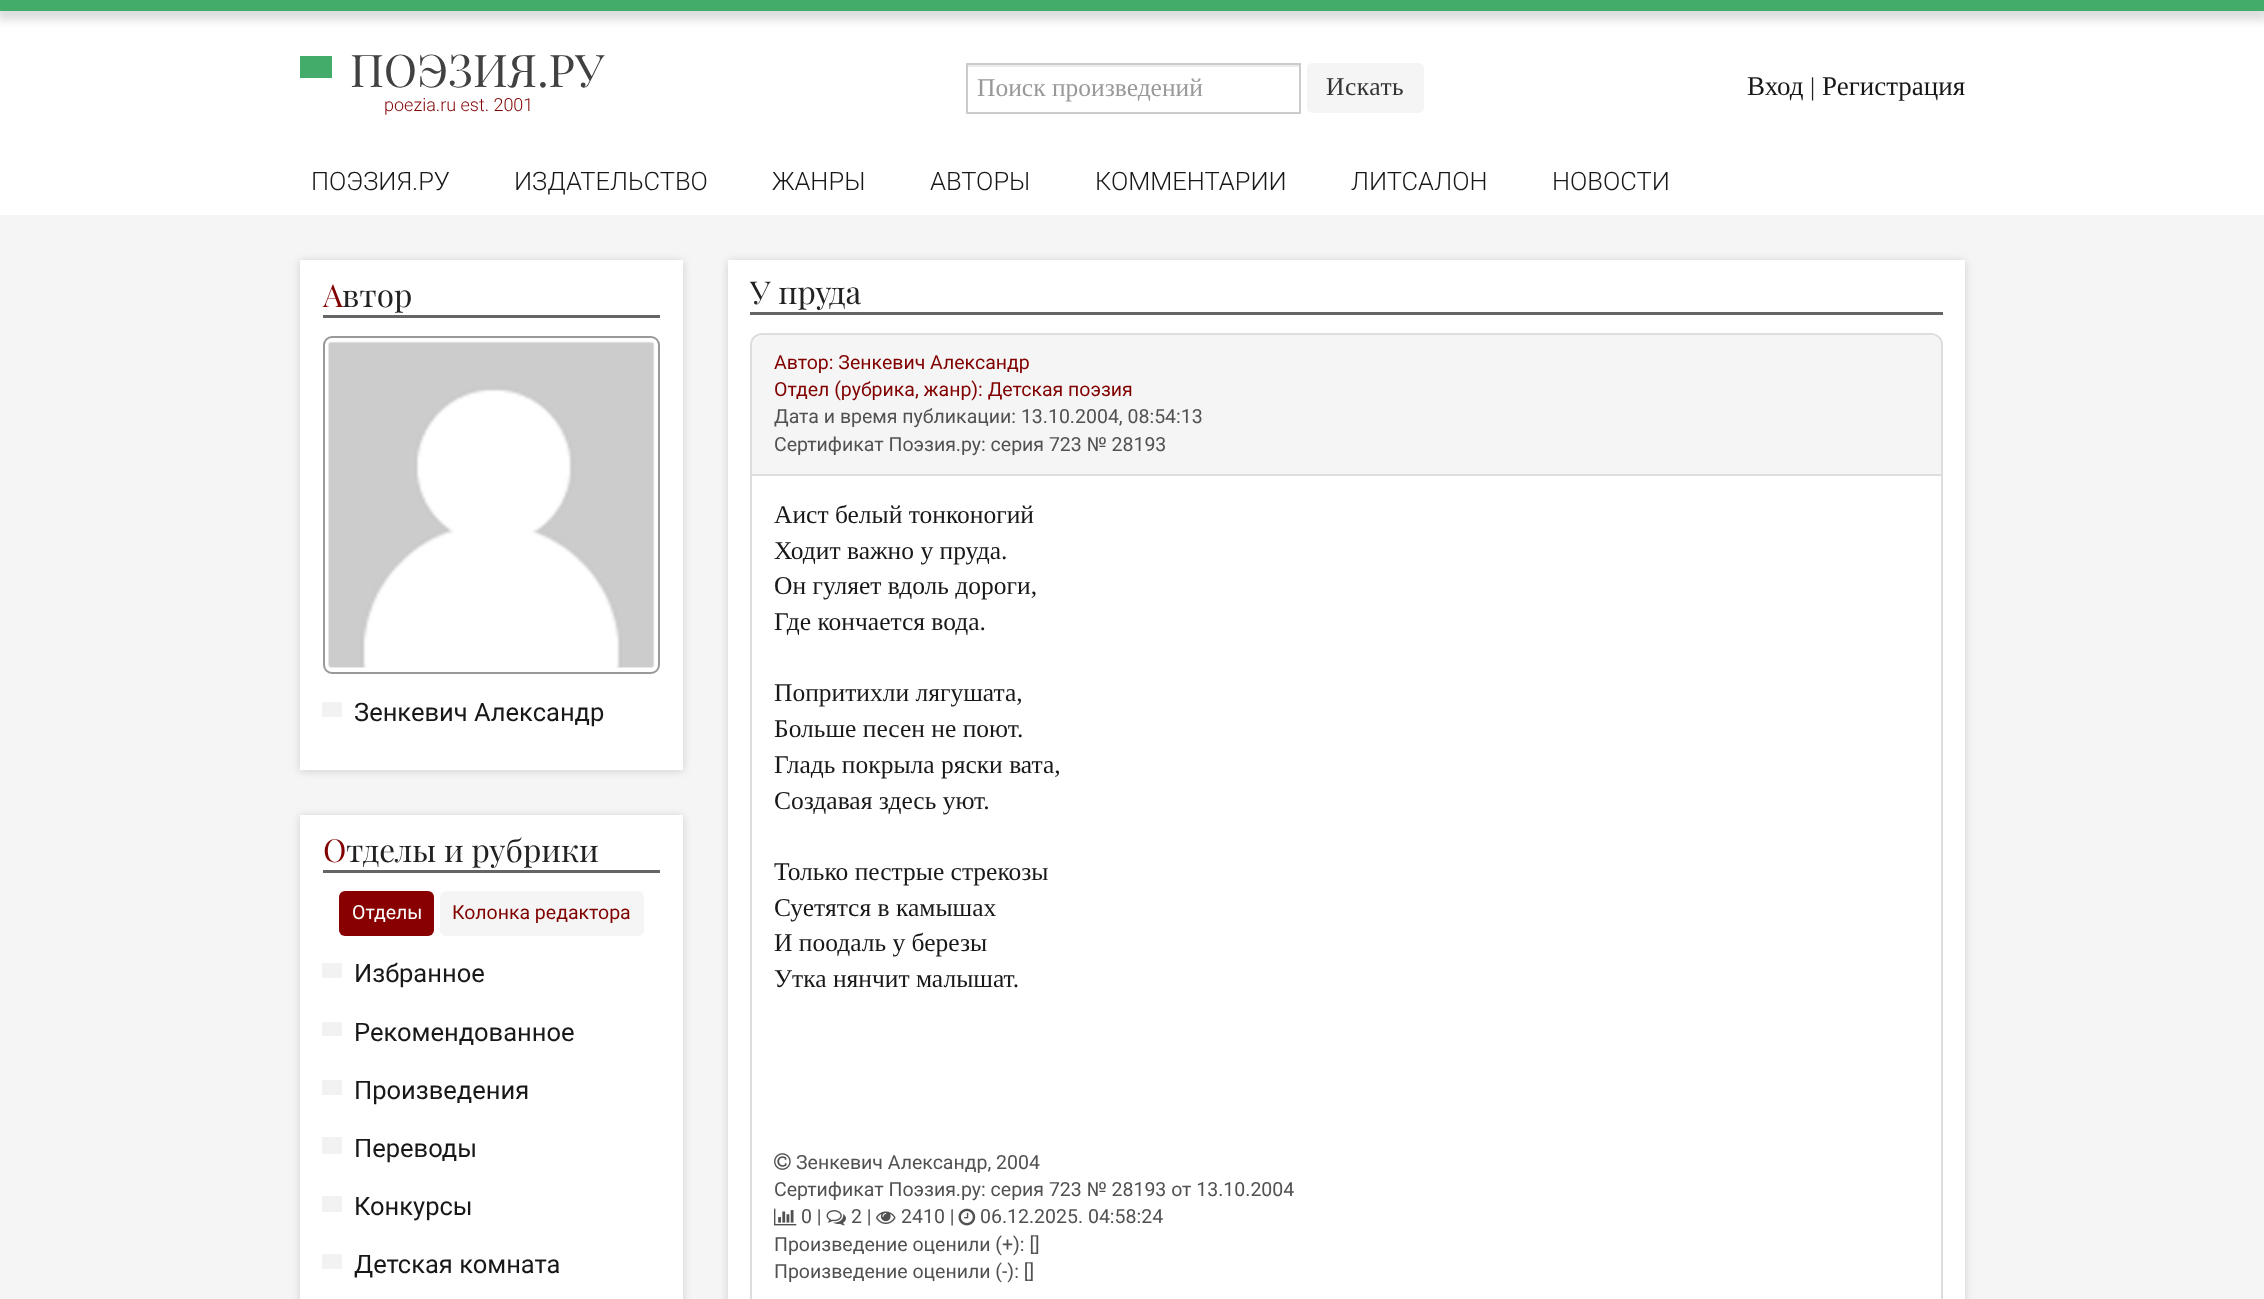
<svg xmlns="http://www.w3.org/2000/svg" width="2264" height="1299">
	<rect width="100%" height="100%" fill="#FFFFFF" />
	<rect x="-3" y="3" width="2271" height="17" fill="#515151" fill-opacity="0.2" filter="blur(5px)" />
	<rect x="0" y="0" width="2264" height="11" fill="#43AC6A" />
	<rect x="300" y="56" width="32" height="22" fill="#43AC6A" />
	<text x="350" y="87" font-family="Playfair Display" font-size="45" fill="#414141">ПОЭЗИЯ.РУ</text>
	<text x="384" y="111" font-family="Roboto" font-size="18" font-weight="300" fill="#800000">poezia.ru est. 2001</text>
	<rect x="968" y="65" width="331" height="2" fill="#ECECEC" />
	<rect x="967" y="64" width="333" height="49" fill="none" stroke="#CCCCCC" stroke-width="2" />
	<text x="977" y="96" font-family="Liberation Serif" font-size="25.5" fill="#999999">Поиск произведений</text>
	<rect x="1307" y="63" width="117" height="50" rx="5" fill="#F5F5F5" />
	<text x="1326" y="95" font-family="Liberation Serif" font-size="25.5" letter-spacing="0.5" fill="#333333">Искать</text>
	<text x="1747" y="95" font-family="Liberation Serif" font-size="27" fill="#181818">Вход</text>
	<text x="1810" y="95" font-family="Liberation Serif" font-size="25.5" fill="#222222">|</text>
	<text x="1822" y="95" font-family="Liberation Serif" font-size="27" fill="#181818">Регистрация</text>
	<g font-family="Roboto" font-size="25.5" font-weight="300" fill="#181818">
		<text x="311" y="190">ПОЭЗИЯ.РУ</text>
		<text x="514" y="190">ИЗДАТЕЛЬСТВО</text>
		<text x="772" y="190">ЖАНРЫ</text>
		<text x="930" y="190">АВТОРЫ</text>
		<text x="1095" y="190">КОММЕНТАРИИ</text>
		<text x="1351" y="190">ЛИТСАЛОН</text>
		<text x="1552" y="190">НОВОСТИ</text>
	</g>
	<rect x="0" y="215" width="2264" height="1084" fill="#F5F5F5" />
	<rect x="300" y="261" width="383" height="510" fill="#000000" fill-opacity="0.15" filter="blur(4px)" />
	<rect x="300" y="260" width="383" height="510" fill="#FFFFFF" />
	<rect x="323" y="315" width="337" height="3" fill="#656565" />
	<text x="323" y="307" font-family="Playfair Display" font-size="31.5" fill="#800000">А</text>
	<text x="342" y="307" font-family="Playfair Display" font-size="31.5" fill="#222222">втор</text>
	<rect x="324" y="337" width="335" height="336" rx="8" fill="none" stroke="#999999" stroke-width="2" />
	<image x="328" y="341" width="327" height="327" href="assets/img1.png" />
	<rect x="322" y="702" width="20" height="15" fill="#F2F2F2" />
	<text x="354" y="721" font-family="Roboto" font-size="25.5" fill="#181818">Зенкевич Александр</text>
	<rect x="300" y="816" width="383" height="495" fill="#000000" fill-opacity="0.15" filter="blur(4px)" />
	<rect x="300" y="815" width="383" height="484" fill="#FFFFFF" />
	<rect x="323" y="870" width="337" height="3" fill="#656565" />
	<text x="323" y="862" font-family="Playfair Display" font-size="31.5" fill="#800000">О</text>
	<text x="346" y="862" font-family="Playfair Display" font-size="31.5" fill="#222222">тделы и рубрики</text>
	<rect x="339" y="891" width="95" height="45" rx="6" fill="#880000" />
	<text x="352" y="919" font-family="Roboto" font-size="19.5" fill="#FFFFFF">Отделы</text>
	<rect x="440" y="891" width="204" height="45" rx="6" fill="#F5F5F5" />
	<text x="452" y="919" font-family="Roboto" font-size="19.5" fill="#800000">Колонка редактора</text>
	<rect x="322" y="963" width="20" height="15" fill="#F2F2F2" />
	<text x="354" y="982" font-family="Roboto" font-size="25.5" fill="#181818">Избранное</text>
	<rect x="322" y="1022" width="20" height="14" fill="#F2F2F2" />
	<text x="354" y="1041" font-family="Roboto" font-size="25.5" fill="#181818">Рекомендованное</text>
	<rect x="322" y="1080" width="20" height="15" fill="#F2F2F2" />
	<text x="354" y="1099" font-family="Roboto" font-size="25.5" fill="#181818">Произведения</text>
	<rect x="322" y="1137" width="20" height="17" fill="#F2F2F2" />
	<text x="354" y="1157" font-family="Roboto" font-size="25.5" fill="#181818">Переводы</text>
	<rect x="322" y="1196" width="20" height="16" fill="#F2F2F2" />
	<text x="354" y="1215" font-family="Roboto" font-size="25.5" fill="#181818">Конкурсы</text>
	<rect x="322" y="1254" width="20" height="15" fill="#F2F2F2" />
	<text x="354" y="1273" font-family="Roboto" font-size="25.5" fill="#181818">Детская комната</text>
	<rect x="728" y="261" width="1237" height="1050" fill="#000000" fill-opacity="0.15" filter="blur(4px)" />
	<rect x="728" y="260" width="1237" height="1039" fill="#FFFFFF" />
	<rect x="750" y="312" width="1193" height="3" fill="#656565" />
	<text x="750" y="304" font-family="Playfair Display" font-size="31.5" fill="#222222">У пруда</text>
	<rect x="751" y="334" width="1191" height="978" rx="11" fill="none" stroke="#DDDDDD" stroke-width="2" />
	<path d="M764 335H1929C1935.5 335 1941 340.5 1941 347V476H752V347C752 340.5 757.5 335 764 335Z" fill="#F5F5F5" />
	<rect x="752" y="474" width="1189" height="2" fill="#DDDDDD" />
	<g font-family="Roboto" font-size="19.5" fill="#800000">
		<text x="774" y="369">Автор: Зенкевич Александр</text>
		<text x="774" y="396">Отдел (рубрика, жанр): Детская поэзия</text>
	</g>
	<g font-family="Roboto" font-size="19.5" fill="#515151">
		<text x="774" y="423">Дата и время публикации: 13.10.2004, 08:54:13</text>
		<text x="774" y="451">Сертификат Поэзия.ру: серия 723 № 28193</text>
	</g>
	<g font-family="Liberation Serif" font-size="25.5" fill="#181818">
		<text x="774" y="523">Аист белый тонконогий</text>
		<text x="774" y="559">Ходит важно у пруда.</text>
		<text x="774" y="594">Он гуляет вдоль дороги,</text>
		<text x="774" y="630">Где кончается вода.</text>
		<text x="774" y="701">Попритихли лягушата,</text>
		<text x="774" y="737">Больше песен не поют.</text>
		<text x="774" y="773">Гладь покрыла ряски вата,</text>
		<text x="774" y="809">Создавая здесь уют.</text>
		<text x="774" y="880">Только пестрые стрекозы</text>
		<text x="774" y="916">Суетятся в камышах</text>
		<text x="774" y="951">И поодаль у березы</text>
		<text x="774" y="987">Утка нянчит малышат.</text>
	</g>
	<image x="774" y="1153" width="17" height="17" href="assets/img2.png" />
	<g font-family="Roboto" font-size="19.5" fill="#515151">
		<text x="796" y="1169">Зенкевич Александр, 2004</text>
		<text x="774" y="1196">Сертификат Поэзия.ру: серия 723 № 28193 от 13.10.2004</text>
	</g>
	<image x="774" y="1208" width="23" height="18" href="assets/img3.png" />
	<text x="801" y="1223" font-family="Roboto" font-size="19.5" fill="#515151">0 |</text>
	<image x="826" y="1210" width="20" height="16" href="assets/img4.png" />
	<text x="851" y="1223" font-family="Roboto" font-size="19.5" fill="#515151">2 |</text>
	<image x="876" y="1211" width="20" height="13" href="assets/img5.png" />
	<text x="901" y="1223" font-family="Roboto" font-size="19.5" fill="#515151">2410 |</text>
	<image x="958" y="1208" width="18" height="18" href="assets/img6.png" />
	<g font-family="Roboto" font-size="19.5" fill="#515151">
		<text x="980" y="1223">06.12.2025. 04:58:24</text>
		<text x="774" y="1251">Произведение оценили (+): []</text>
		<text x="774" y="1278">Произведение оценили (-): []</text>
	</g>
</svg>
